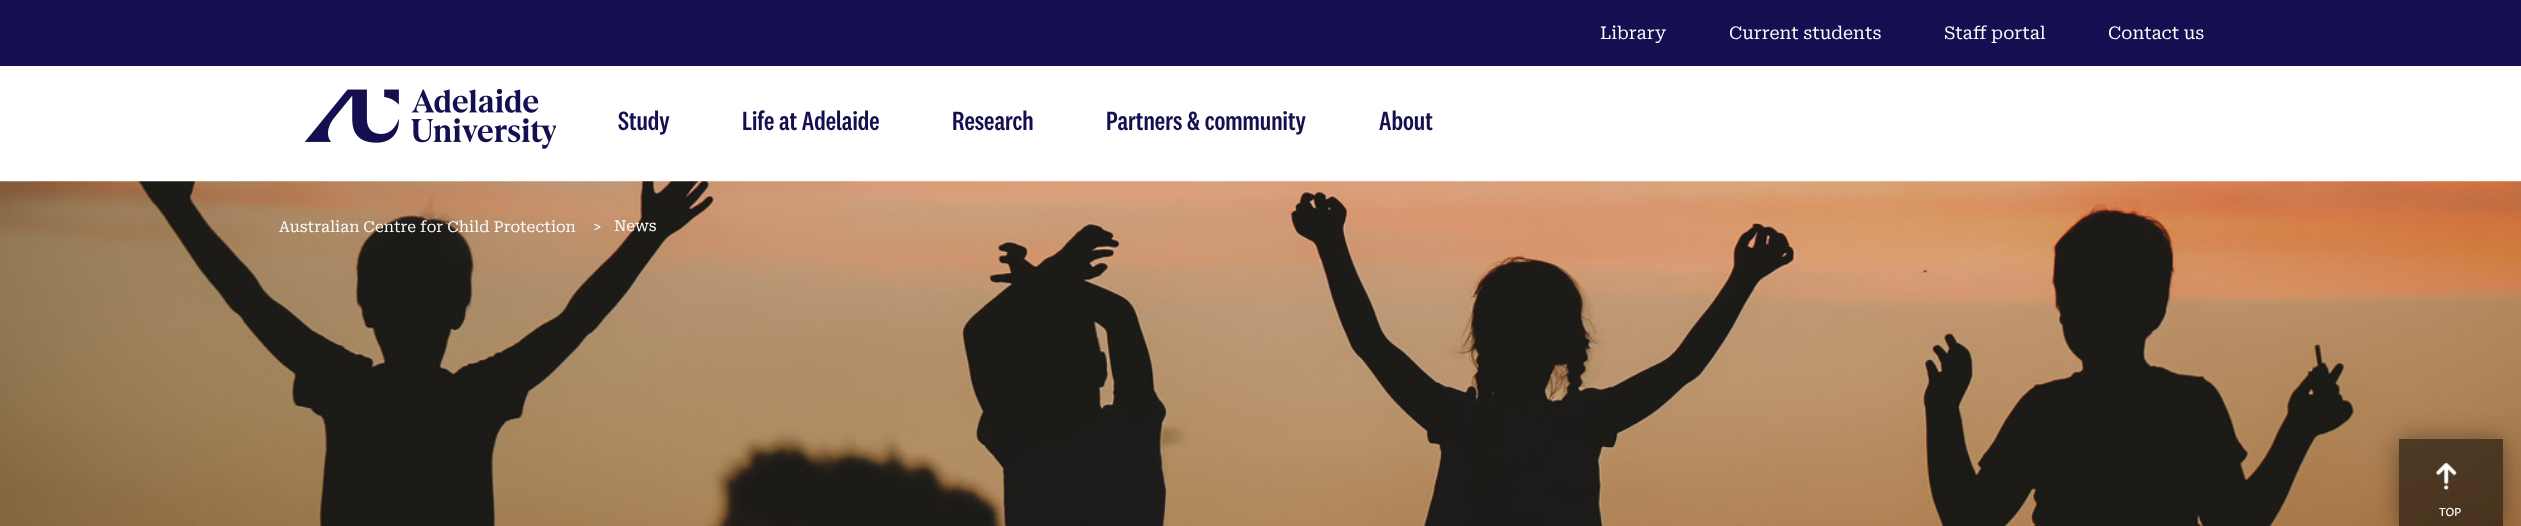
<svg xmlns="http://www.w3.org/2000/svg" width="2521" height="526">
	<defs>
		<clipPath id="clip1"><path d="M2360 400H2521V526H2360ZM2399 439H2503V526H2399Z" clip-rule="evenodd" /></clipPath>
	</defs>
	<rect width="100%" height="100%" fill="#FFFFFF" />
	<rect x="0" y="0" width="2521" height="66" fill="#140F50" />
	<g font-family="Roboto Serif" font-size="17.5" fill="#FFFFFF">
		<text x="1600" y="39">Library</text>
		<text x="1729" y="39">Current students</text>
		<text x="1944" y="39">Staff portal</text>
		<text x="2108" y="39">Contact us</text>
	</g>
	<image x="305" y="89" width="251" height="60" href="assets/img1.png" />
	<g font-family="'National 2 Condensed'" font-size="27.5" font-weight="500" fill="#140F50">
		<text x="618" y="130">Study</text>
		<text x="742" y="130">Life at Adelaide</text>
		<text x="952" y="130">Research</text>
		<text x="1106" y="130">Partners &amp; community</text>
		<text x="1379" y="130">About</text>
	</g>
	<image x="0" y="181" width="2521" height="345" href="assets/img2.png" />
	<g font-family="'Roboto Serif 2'" font-size="15" fill="#FFFFFF">
		<text x="279" y="232">Australian Centre for Child Protection</text>
		<text x="593" y="232">&gt;</text>
		<text x="614" y="231">News</text>
	</g>
	<g clip-path="url(#clip1)">
		<rect x="2399" y="439" width="104" height="87" fill="#000000" fill-opacity="0.4" filter="blur(12.5px)" />
	</g>
	<rect x="2399" y="439" width="104" height="87" fill="#000000" fill-opacity="0.55" />
	<image x="2436" y="462" width="21" height="28" href="assets/img3.png" />
	<text x="2439" y="516" font-family="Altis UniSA" font-size="12" fill="#FFFFFF">TOP</text>
</svg>
